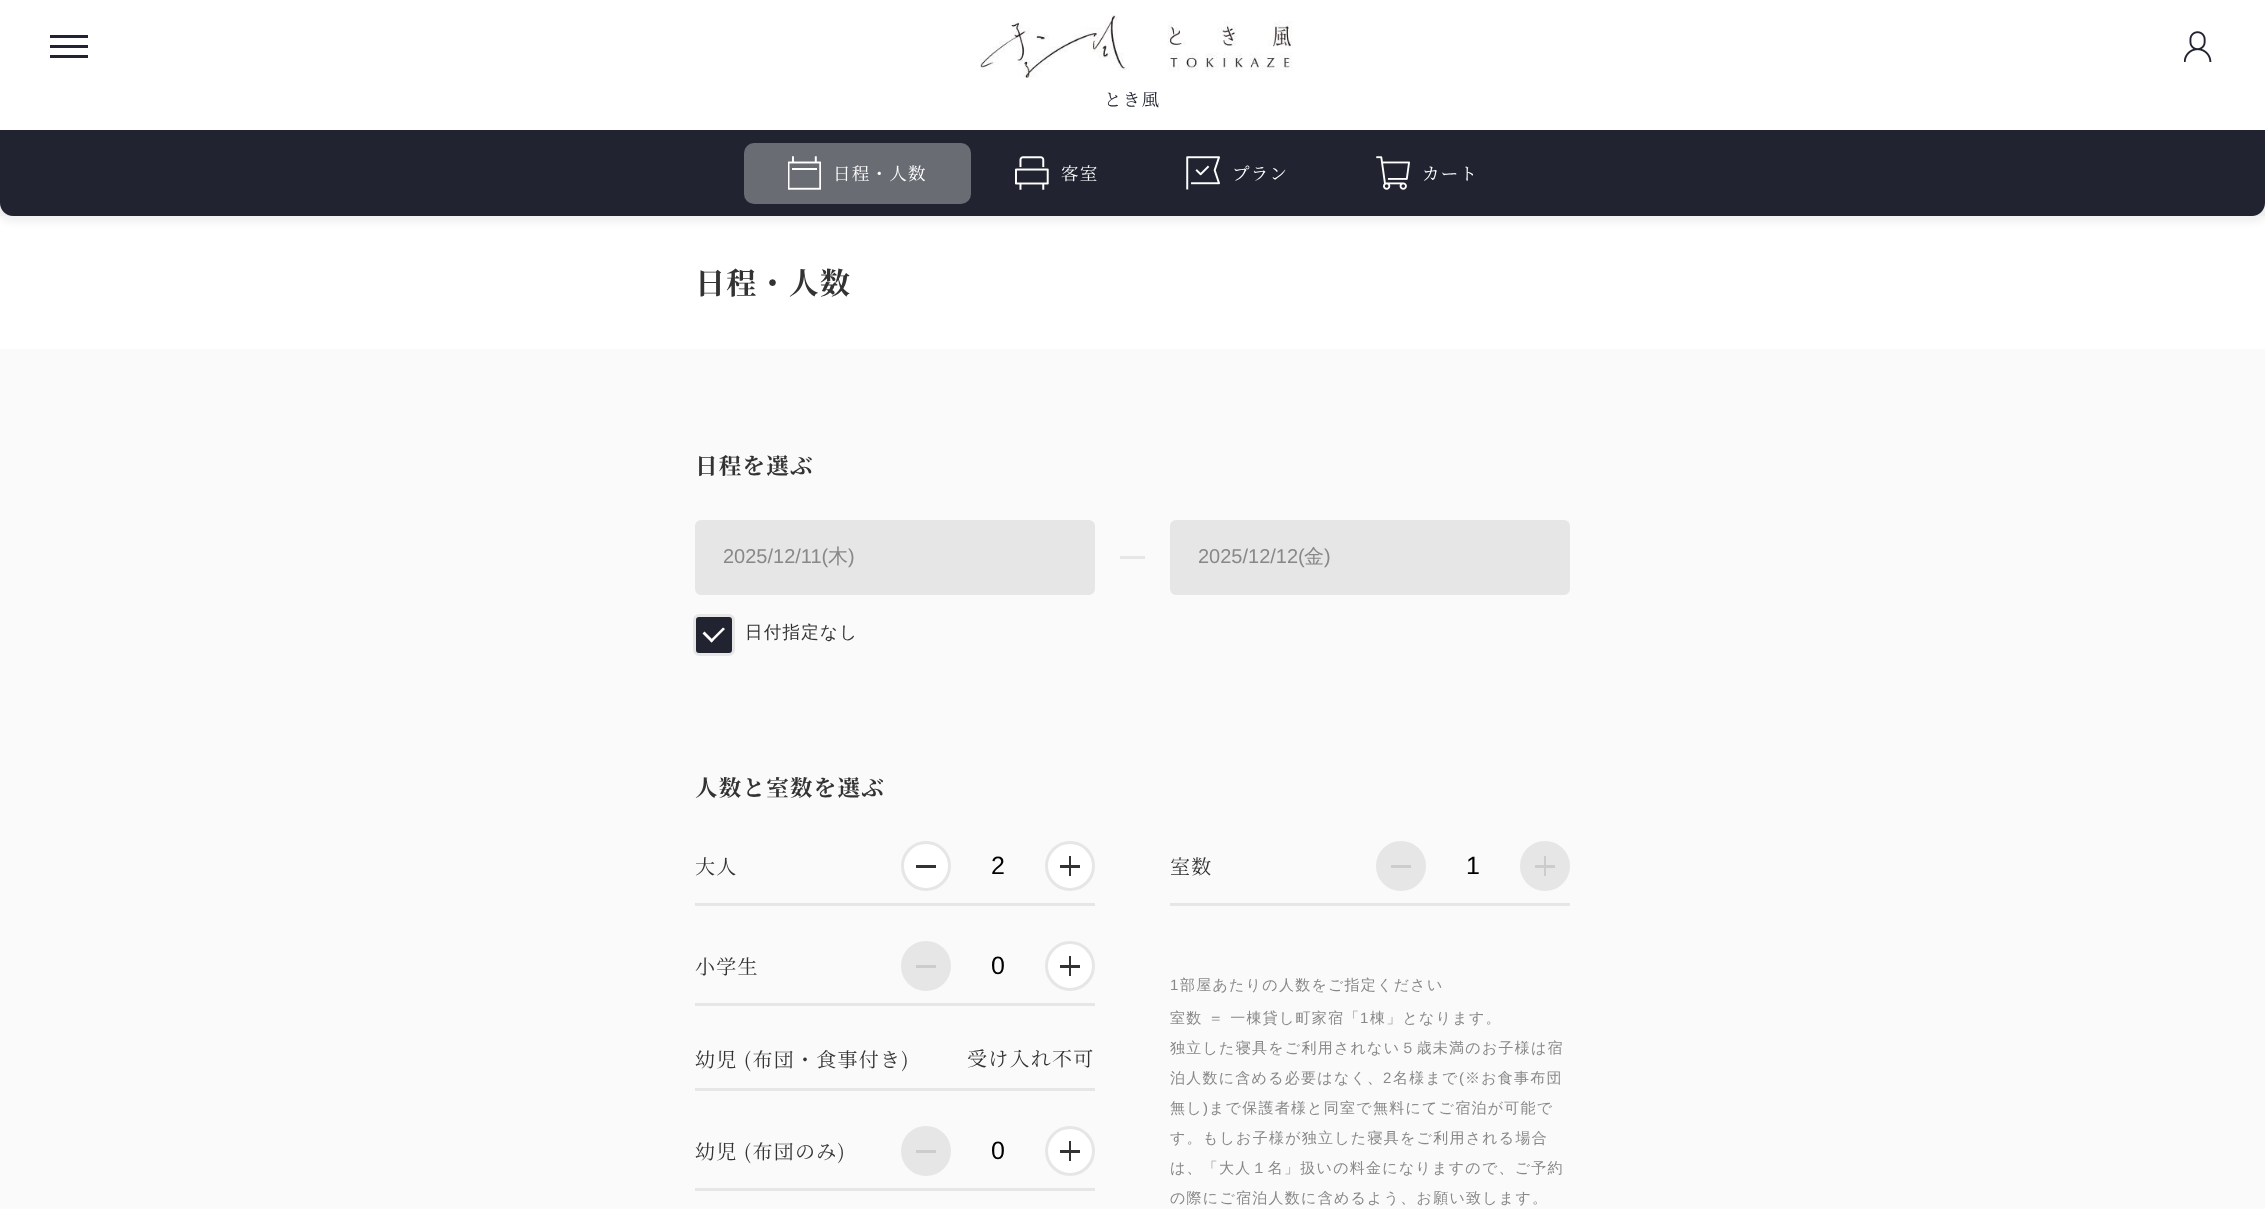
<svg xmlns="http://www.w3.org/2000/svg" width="2265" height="1209">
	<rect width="100%" height="100%" fill="#FAFAFA" />
	<rect x="0" y="216" width="2265" height="133" fill="#FFFFFF" />
	<rect x="-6" y="-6" width="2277" height="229" rx="19" fill="#000000" fill-opacity="0.05" filter="blur(3px)" />
	<rect x="0" y="0" width="2265" height="130" fill="#FFFFFF" />
	<rect x="50" y="35" width="38" height="3" fill="#212430" />
	<rect x="50" y="45" width="38" height="3" fill="#212430" />
	<rect x="50" y="55" width="38" height="3" fill="#212430" />
	<image x="980" y="15" width="313" height="63" href="assets/img1.png" />
	<image x="2184" y="31" width="28" height="31" href="assets/img2.png" />
	<text x="1104" y="106" font-family="Noto Serif JP" font-size="17.5" letter-spacing="1.25" fill="#212430">とき風</text>
	<path d="M0 130H2265V203C2265 210 2259 216 2252 216H13C6 216 0 210 0 203Z" fill="#212430" />
	<image x="788" y="156" width="33" height="34" href="assets/img3.png" />
	<text x="833" y="180" font-family="Noto Serif JP" font-size="17.5" letter-spacing="1.25" fill="#FFFFFF">日程・人数</text>
	<rect x="744" y="143" width="227" height="61" rx="10" fill="#FFFFFF" fill-opacity="0.33" />
	<image x="1015" y="156" width="34" height="34" href="assets/img4.png" />
	<text x="1061" y="180" font-family="Noto Serif JP" font-size="17.5" letter-spacing="1.25" fill="#FFFFFF">客室</text>
	<image x="1186" y="156" width="34" height="34" href="assets/img5.png" />
	<text x="1232" y="180" font-family="Noto Serif JP" font-size="17.5" letter-spacing="1.25" fill="#FFFFFF">プラン</text>
	<image x="1376" y="156" width="34" height="34" href="assets/img6.png" />
	<text x="1422" y="180" font-family="Noto Serif JP" font-size="17.5" letter-spacing="1.25" fill="#FFFFFF">カート</text>
	<text x="695" y="294" font-family="Noto Serif JP" font-size="30" font-weight="700" letter-spacing="1.25" fill="#333333">日程・人数</text>
	<text x="695" y="474" font-family="Noto Serif JP" font-size="22.5" font-weight="700" letter-spacing="1.25" fill="#333333">日程を選ぶ</text>
	<rect x="696.5" y="521.5" width="397" height="72" rx="4.5" fill="#E6E6E6" stroke="#E6E6E6" stroke-width="3" />
	<text x="723" y="563" font-family="Liberation Sans" font-size="20" fill="#888888">2025/12/11(</text>
	<text x="828" y="563" font-family="WenQuanYi Zen Hei" font-size="20" font-weight="500" fill="#888888">木</text>
	<text x="848" y="563" font-family="Liberation Sans" font-size="20" fill="#888888">)</text>
	<rect x="1120" y="556" width="25" height="3" fill="#E6E6E6" />
	<rect x="1171.5" y="521.5" width="397" height="72" rx="4.5" fill="#E6E6E6" stroke="#E6E6E6" stroke-width="3" />
	<text x="1198" y="563" font-family="Liberation Sans" font-size="20" fill="#888888">2025/12/12(</text>
	<text x="1304" y="563" font-family="WenQuanYi Zen Hei" font-size="20" font-weight="500" fill="#888888">金</text>
	<text x="1324" y="563" font-family="Liberation Sans" font-size="20" fill="#888888">)</text>
	<rect x="694.5" y="615.5" width="39" height="39" rx="4.5" fill="#212430" stroke="#E6E6E6" stroke-width="3" />
	<text x="745" y="638" font-family="WenQuanYi Zen Hei" font-size="17.5" font-weight="500" letter-spacing="1.25" fill="#333333">日付指定なし</text>
	<path d="M723 627.5L725 629L711.5 642.5L710 640.5Z" fill="#FFFFFF" />
	<path d="M704.5 631.5L713.5 640.5L711.5 642.5L702.5 633.5Z" fill="#FFFFFF" />
	<text x="695" y="796" font-family="Noto Serif JP" font-size="22.5" font-weight="700" letter-spacing="1.25" fill="#333333">人数と室数を選ぶ</text>
	<rect x="695" y="903" width="400" height="3" fill="#E6E6E6" />
	<text x="695" y="874" font-family="Noto Serif JP" font-size="20" letter-spacing="1.25" fill="#333333">大人</text>
	<circle cx="926" cy="866" r="23.5" fill="#FFFFFF" stroke="#E6E6E6" stroke-width="3" />
	<rect x="916" y="865" width="20" height="3" fill="#333333" />
	<text x="991" y="874" font-family="Liberation Sans" font-size="25" fill="#000000">2</text>
	<circle cx="1070" cy="866" r="23.5" fill="#FFFFFF" stroke="#E6E6E6" stroke-width="3" />
	<rect x="1060" y="865" width="20" height="3" fill="#333333" />
	<rect x="1069" y="856" width="2" height="20" fill="#333333" />
	<rect x="695" y="1003" width="400" height="3" fill="#E6E6E6" />
	<text x="695" y="974" font-family="Noto Serif JP" font-size="20" letter-spacing="1.25" fill="#333333">小学生</text>
	<circle cx="926" cy="966" r="23.5" fill="#E6E6E6" stroke="#E6E6E6" stroke-width="3" />
	<rect x="916" y="965" width="20" height="3" fill="#CCCCCC" />
	<text x="991" y="974" font-family="Liberation Sans" font-size="25" fill="#000000">0</text>
	<circle cx="1070" cy="966" r="23.5" fill="#FFFFFF" stroke="#E6E6E6" stroke-width="3" />
	<rect x="1060" y="965" width="20" height="3" fill="#333333" />
	<rect x="1069" y="956" width="2" height="20" fill="#333333" />
	<rect x="695" y="1088" width="400" height="3" fill="#E6E6E6" />
	<g font-family="Noto Serif JP" font-size="20" letter-spacing="1.25" fill="#333333">
		<text x="695" y="1067">幼児 (布団・食事付き)</text>
		<text x="967" y="1066">受け入れ不可</text>
	</g>
	<rect x="695" y="1188" width="400" height="3" fill="#E6E6E6" />
	<text x="695" y="1159" font-family="Noto Serif JP" font-size="20" letter-spacing="1.25" fill="#333333">幼児 (布団のみ)</text>
	<circle cx="926" cy="1151" r="23.5" fill="#E6E6E6" stroke="#E6E6E6" stroke-width="3" />
	<rect x="916" y="1150" width="20" height="3" fill="#CCCCCC" />
	<text x="991" y="1159" font-family="Liberation Sans" font-size="25" fill="#000000">0</text>
	<circle cx="1070" cy="1151" r="23.5" fill="#FFFFFF" stroke="#E6E6E6" stroke-width="3" />
	<rect x="1060" y="1150" width="20" height="3" fill="#333333" />
	<rect x="1069" y="1141" width="2" height="20" fill="#333333" />
	<rect x="1170" y="903" width="400" height="3" fill="#E6E6E6" />
	<text x="1170" y="874" font-family="Noto Serif JP" font-size="20" letter-spacing="1.25" fill="#333333">室数</text>
	<circle cx="1401" cy="866" r="23.5" fill="#E6E6E6" stroke="#E6E6E6" stroke-width="3" />
	<rect x="1391" y="865" width="20" height="3" fill="#CCCCCC" />
	<text x="1466" y="874" font-family="Liberation Sans" font-size="25" fill="#000000">1</text>
	<circle cx="1545" cy="866" r="23.5" fill="#E6E6E6" stroke="#E6E6E6" stroke-width="3" />
	<rect x="1535" y="865" width="20" height="3" fill="#CCCCCC" />
	<rect x="1544" y="856" width="2" height="20" fill="#CCCCCC" />
	<text x="1170" y="990" font-family="Liberation Sans" font-size="15" letter-spacing="1.25" fill="#888888">1</text>
	<g font-family="WenQuanYi Zen Hei" font-size="15" font-weight="500" letter-spacing="1.25" fill="#888888">
		<text x="1180" y="990">部屋あたりの人数をご指定ください</text>
		<text x="1170" y="1023">室数 ＝ 一棟貸し町家宿「</text>
	</g>
	<text x="1360" y="1023" font-family="Liberation Sans" font-size="15" letter-spacing="1.25" fill="#888888">1</text>
	<g font-family="WenQuanYi Zen Hei" font-size="15" font-weight="500" letter-spacing="1.25" fill="#888888">
		<text x="1370" y="1023">棟」となります。</text>
		<text x="1170" y="1053">独立した寝具をご利用されない５歳未満のお子様は宿</text>
		<text x="1170" y="1083">泊人数に含める必要はなく、</text>
	</g>
	<text x="1383" y="1083" font-family="Liberation Sans" font-size="15" letter-spacing="1.25" fill="#888888">2</text>
	<text x="1393" y="1083" font-family="WenQuanYi Zen Hei" font-size="15" font-weight="500" letter-spacing="1.25" fill="#888888">名様まで</text>
	<text x="1459" y="1083" font-family="Liberation Sans" font-size="15" letter-spacing="1.25" fill="#888888">(</text>
	<g font-family="WenQuanYi Zen Hei" font-size="15" font-weight="500" letter-spacing="1.25" fill="#888888">
		<text x="1465" y="1083">※お食事布団</text>
		<text x="1170" y="1113">無し</text>
	</g>
	<text x="1203" y="1113" font-family="Liberation Sans" font-size="15" letter-spacing="1.25" fill="#888888">)</text>
	<g font-family="WenQuanYi Zen Hei" font-size="15" font-weight="500" letter-spacing="1.25" fill="#888888">
		<text x="1209" y="1113">まで保護者様と同室で無料にてご宿泊が可能で</text>
		<text x="1170" y="1143">す。もしお子様が独立した寝具をご利用される場合</text>
		<text x="1170" y="1173">は、「大人１名」扱いの料金になりますので、ご予約</text>
		<text x="1170" y="1203">の際にご宿泊人数に含めるよう、お願い致します。</text>
	</g>
</svg>
